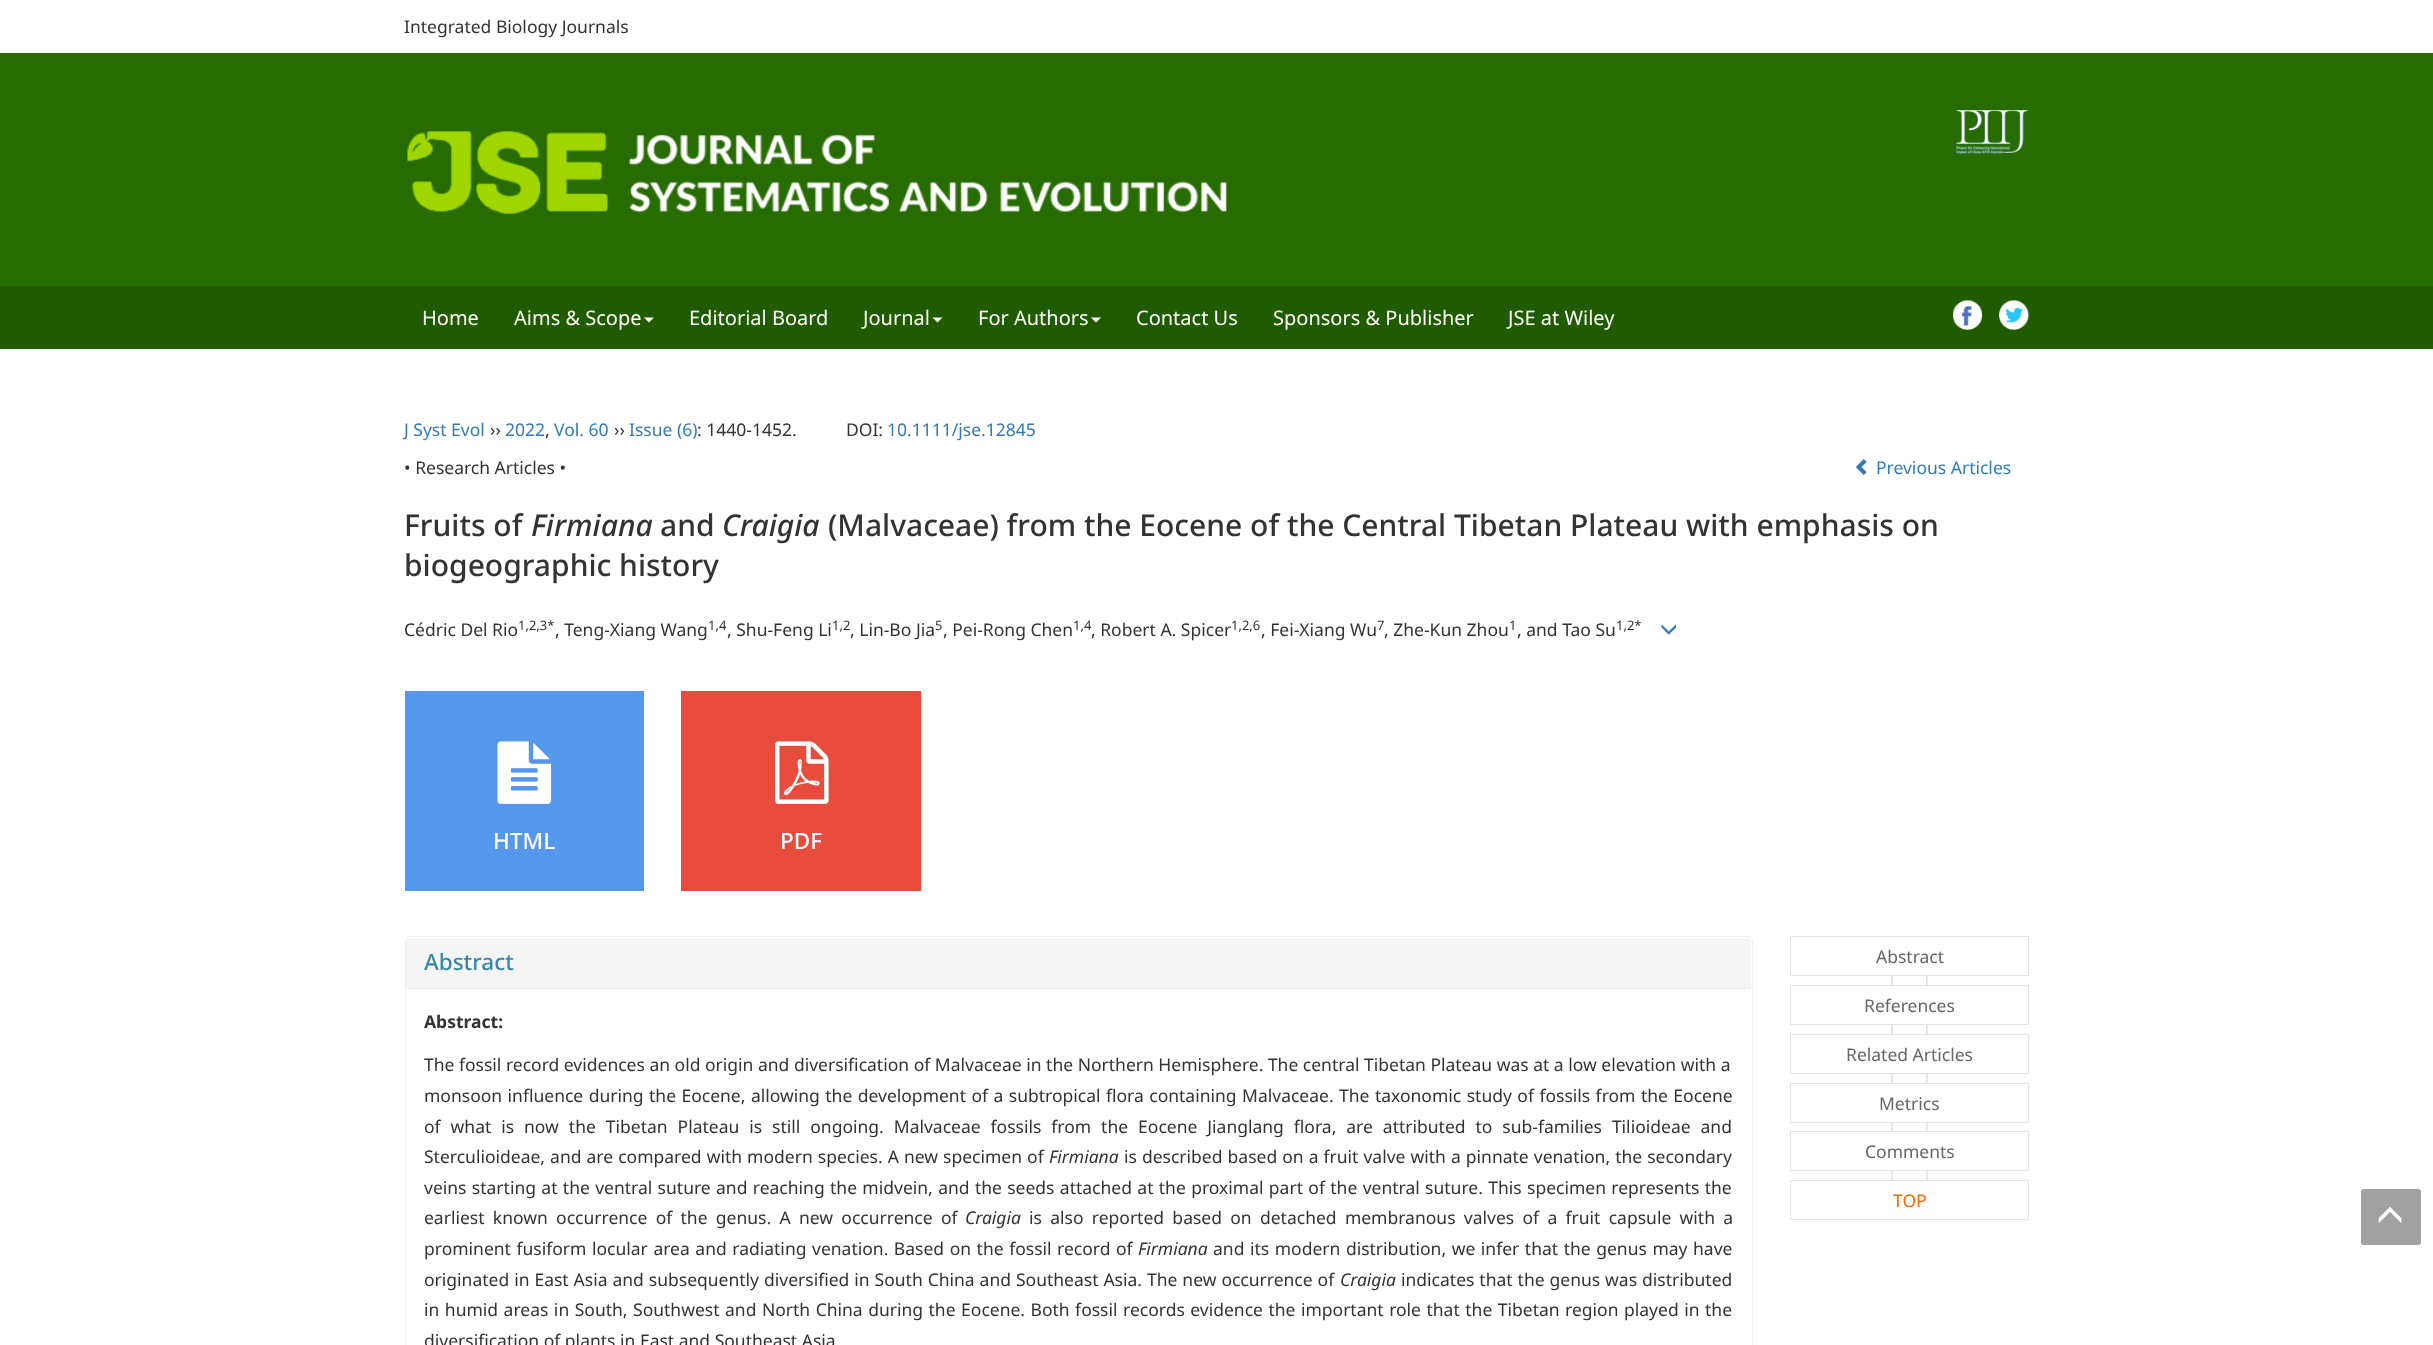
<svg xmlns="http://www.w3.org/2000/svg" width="2433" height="1345">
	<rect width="100%" height="100%" fill="#FFFFFF" />
	<rect x="0" y="53" width="2433" height="233" fill="#276C00" />
	<text x="404" y="33" font-family="Noto Sans" font-size="17.5" fill="#333333">Integrated Biology Journals</text>
	<image x="407" y="131" width="820" height="83" href="assets/img1.png" />
	<image x="1956" y="110" width="72" height="44" href="assets/img2.png" />
	<rect x="0" y="286" width="2433" height="63" fill="#215B00" />
	<g font-family="Noto Sans" font-size="20" fill="#FFFFFF">
		<text x="422" y="325">Home</text>
		<text x="514" y="325">Aims &amp; Scope</text>
	</g>
	<path d="M644 317.5H654L649 322.5Z" fill="#FFFFFF" />
	<g font-family="Noto Sans" font-size="20" fill="#FFFFFF">
		<text x="689" y="325">Editorial Board</text>
		<text x="863" y="325">Journal</text>
	</g>
	<path d="M932.5 317.5H942.5L937.5 322.5Z" fill="#FFFFFF" />
	<text x="978" y="325" font-family="Noto Sans" font-size="20" fill="#FFFFFF">For Authors</text>
	<path d="M1091 317.5H1101L1096 322.5Z" fill="#FFFFFF" />
	<g font-family="Noto Sans" font-size="20" fill="#FFFFFF">
		<text x="1136" y="325">Contact Us</text>
		<text x="1273" y="325">Sponsors &amp; Publisher</text>
		<text x="1508" y="325">JSE at Wiley</text>
	</g>
	<image x="1953" y="300" width="30" height="30" href="assets/img3.png" />
	<image x="1999" y="300" width="30" height="30" href="assets/img4.png" />
	<text x="404" y="436" font-family="Noto Sans" font-size="17.5" fill="#337AB7">J Syst Evol</text>
	<text x="490" y="436" font-family="Noto Sans" font-size="17.5" fill="#333333">››</text>
	<g font-family="Noto Sans" font-size="17.5" fill="#337AB7">
		<text x="505" y="436">2022</text>
		<text x="554" y="436">Vol. 60</text>
	</g>
	<text x="614" y="436" font-family="Noto Sans" font-size="17.5" fill="#333333">››</text>
	<text x="629" y="436" font-family="Noto Sans" font-size="17.5" fill="#337AB7">Issue (6)</text>
	<g font-family="Noto Sans" font-size="17.5" fill="#333333">
		<text x="697" y="436">: 1440-1452.</text>
		<text x="846" y="436">DOI:</text>
	</g>
	<text x="887" y="436" font-family="Noto Sans" font-size="17.5" fill="#337AB7">10.1111/jse.12845</text>
	<g font-family="Noto Sans" font-size="17.5" fill="#333333">
		<text x="545" y="436">,</text>
		<text x="404" y="474">• Research Articles •</text>
	</g>
	<image x="1855" y="459" width="12" height="16" href="assets/img5.png" />
	<text x="1876" y="474" font-family="Noto Sans" font-size="17.5" fill="#337AB7">Previous Articles</text>
	<text x="404" y="536" font-family="Noto Sans" font-size="30" font-weight="500" fill="#333333">Fruits of</text>
	<text x="531" y="536" font-family="Noto Sans" font-size="30" font-weight="500" font-style="italic" fill="#333333">Firmiana</text>
	<text x="660" y="536" font-family="Noto Sans" font-size="30" font-weight="500" fill="#333333">and</text>
	<text x="722" y="536" font-family="Noto Sans" font-size="30" font-weight="500" font-style="italic" fill="#333333">Craigia</text>
	<g font-family="Noto Sans" font-size="30" font-weight="500" fill="#333333">
		<text x="828" y="536">(Malvaceae) from the Eocene of the Central Tibetan Plateau with emphasis on</text>
		<text x="404" y="576">biogeographic history</text>
	</g>
	<text x="404" y="636" font-family="Noto Sans" font-size="17.5" fill="#333333">Cédric Del Rio</text>
	<text x="518" y="630" font-family="Noto Sans" font-size="13" fill="#333333">1,2,3*</text>
	<text x="555" y="636" font-family="Noto Sans" font-size="17.5" fill="#333333">, Teng-Xiang Wang</text>
	<text x="708" y="630" font-family="Noto Sans" font-size="13" fill="#333333">1,4</text>
	<text x="727" y="636" font-family="Noto Sans" font-size="17.5" fill="#333333">, Shu-Feng Li</text>
	<text x="832" y="630" font-family="Noto Sans" font-size="13" fill="#333333">1,2</text>
	<text x="850" y="636" font-family="Noto Sans" font-size="17.5" fill="#333333">, Lin-Bo Jia</text>
	<text x="935" y="630" font-family="Noto Sans" font-size="13" fill="#333333">5</text>
	<text x="943" y="636" font-family="Noto Sans" font-size="17.5" fill="#333333">, Pei-Rong Chen</text>
	<text x="1073" y="630" font-family="Noto Sans" font-size="13" fill="#333333">1,4</text>
	<text x="1091" y="636" font-family="Noto Sans" font-size="17.5" fill="#333333">, Robert A. Spicer</text>
	<text x="1231" y="630" font-family="Noto Sans" font-size="13" fill="#333333">1,2,6</text>
	<text x="1261" y="636" font-family="Noto Sans" font-size="17.5" fill="#333333">, Fei-Xiang Wu</text>
	<text x="1377" y="630" font-family="Noto Sans" font-size="13" fill="#333333">7</text>
	<text x="1384" y="636" font-family="Noto Sans" font-size="17.5" fill="#333333">, Zhe-Kun Zhou</text>
	<text x="1509" y="630" font-family="Noto Sans" font-size="13" fill="#333333">1</text>
	<text x="1517" y="636" font-family="Noto Sans" font-size="17.5" fill="#333333">, and Tao Su</text>
	<text x="1616" y="630" font-family="Noto Sans" font-size="13" fill="#333333">1,2*</text>
	<image x="1661" y="624" width="15" height="11" href="assets/img6.png" />
	<rect x="405" y="691" width="239" height="200" fill="#5497EB" />
	<image x="497" y="741" width="55" height="63" href="assets/img7.png" />
	<text x="493" y="849" font-family="Noto Sans" font-size="22.5" font-weight="500" fill="#FFFFFF">HTML</text>
	<rect x="681" y="691" width="240" height="200" fill="#E74C3C" />
	<image x="775" y="741" width="54" height="63" href="assets/img8.png" />
	<text x="780" y="849" font-family="Noto Sans" font-size="22.5" font-weight="500" fill="#FFFFFF">PDF</text>
	<rect x="405.5" y="936.5" width="1347" height="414" rx="4.5" fill="none" stroke="#EEEEEE" />
	<path d="M410 938H1747C1749 938 1751 940 1751 942V988H406V942C406 940 408 938 410 938Z" fill="#F5F5F5" />
	<text x="424" y="970" font-family="Noto Sans" font-size="22.5" font-weight="500" fill="#3A87AD">Abstract</text>
	<rect x="406" y="988" width="1345" height="1" fill="#EEEEEE" />
	<text x="424" y="1028" font-family="Noto Sans" font-size="17.5" font-weight="700" fill="#333333">Abstract:</text>
	<g font-family="Noto Sans" font-size="17.5" fill="#333333">
		<text x="424" y="1071">The fossil record evidences an old origin and diversification of Malvaceae in the Northern Hemisphere. The central Tibetan Plateau was at a low elevation with a</text>
		<text x="424" y="1102" word-spacing="0.9">monsoon influence during the Eocene, allowing the development of a subtropical flora containing Malvaceae. The taxonomic study of fossils from the Eocene</text>
		<text x="424" y="1133" word-spacing="5.4">of what is now the Tibetan Plateau is still ongoing. Malvaceae fossils from the Eocene Jianglang flora, are attributed to sub-families Tilioideae and</text>
		<text x="424" y="1163" word-spacing="0.5">Sterculioideae, and are compared with modern species. A new specimen of</text>
	</g>
	<text x="1049" y="1163" font-family="Noto Sans" font-size="17.5" font-style="italic" fill="#333333">Firmiana</text>
	<g font-family="Noto Sans" font-size="17.5" fill="#333333">
		<text x="1124" y="1163" word-spacing="0.5">is described based on a fruit valve with a pinnate venation, the secondary</text>
		<text x="424" y="1194" word-spacing="0.8">veins starting at the ventral suture and reaching the midvein, and the seeds attached at the proximal part of the ventral suture. This specimen represents the</text>
		<text x="424" y="1224" word-spacing="3.75">earliest known occurrence of the genus. A new occurrence of</text>
	</g>
	<text x="965" y="1224" font-family="Noto Sans" font-size="17.5" font-style="italic" fill="#333333">Craigia</text>
	<g font-family="Noto Sans" font-size="17.5" fill="#333333">
		<text x="1029" y="1224" word-spacing="3.75">is also reported based on detached membranous valves of a fruit capsule with a</text>
		<text x="424" y="1255" word-spacing="1">prominent fusiform locular area and radiating venation. Based on the fossil record of</text>
	</g>
	<text x="1138" y="1255" font-family="Noto Sans" font-size="17.5" font-style="italic" fill="#333333">Firmiana</text>
	<g font-family="Noto Sans" font-size="17.5" fill="#333333">
		<text x="1213" y="1255" word-spacing="1">and its modern distribution, we infer that the genus may have</text>
		<text x="424" y="1286" word-spacing="0.4">originated in East Asia and subsequently diversified in South China and Southeast Asia. The new occurrence of</text>
	</g>
	<text x="1340" y="1286" font-family="Noto Sans" font-size="17.5" font-style="italic" fill="#333333">Craigia</text>
	<g font-family="Noto Sans" font-size="17.5" fill="#333333">
		<text x="1401" y="1286" word-spacing="0.4">indicates that the genus was distributed</text>
		<text x="424" y="1316" word-spacing="0.95">in humid areas in South, Southwest and North China during the Eocene. Both fossil records evidence the important role that the Tibetan region played in the</text>
		<text x="424" y="1347">diversification of plants in East and Southeast Asia</text>
	</g>
	<image x="1891" y="976" width="37" height="9" href="assets/img9.png" />
	<rect x="1790.5" y="936.5" width="238" height="39" fill="none" stroke="#E3E3E3" />
	<text x="1876" y="963" font-family="Noto Sans" font-size="17.5" fill="#666666">Abstract</text>
	<image x="1891" y="1025" width="37" height="9" href="assets/img10.png" />
	<rect x="1790.5" y="985.5" width="238" height="39" fill="none" stroke="#E3E3E3" />
	<text x="1864" y="1012" font-family="Noto Sans" font-size="17.5" fill="#666666">References</text>
	<image x="1891" y="1033" width="37" height="50" href="assets/img11.png" />
	<rect x="1891" y="1035" width="37" height="38" fill="#FFFFFF" />
	<rect x="1790.5" y="1034.5" width="238" height="39" fill="none" stroke="#E3E3E3" />
	<text x="1846" y="1061" font-family="Noto Sans" font-size="17.5" fill="#666666">Related Articles</text>
	<image x="1891" y="1082" width="37" height="49" href="assets/img12.png" />
	<rect x="1891" y="1084" width="37" height="38" fill="#FFFFFF" />
	<rect x="1790.5" y="1083.5" width="238" height="39" fill="none" stroke="#E3E3E3" />
	<text x="1879" y="1110" font-family="Noto Sans" font-size="17.5" fill="#666666">Metrics</text>
	<image x="1891" y="1171" width="37" height="9" href="assets/img9.png" />
	<rect x="1790.5" y="1131.5" width="238" height="39" fill="none" stroke="#E3E3E3" />
	<text x="1865" y="1158" font-family="Noto Sans" font-size="17.5" fill="#666666">Comments</text>
	<rect x="1790.5" y="1180.5" width="238" height="39" fill="none" stroke="#E3E3E3" />
	<text x="1893" y="1207" font-family="Noto Sans" font-size="17.5" fill="#FF6600">TOP</text>
	<rect x="2361" y="1189" width="60" height="56" rx="3" fill="#A1A1A1" />
	<image x="2378" y="1207" width="24" height="16" href="assets/img13.png" />
</svg>
